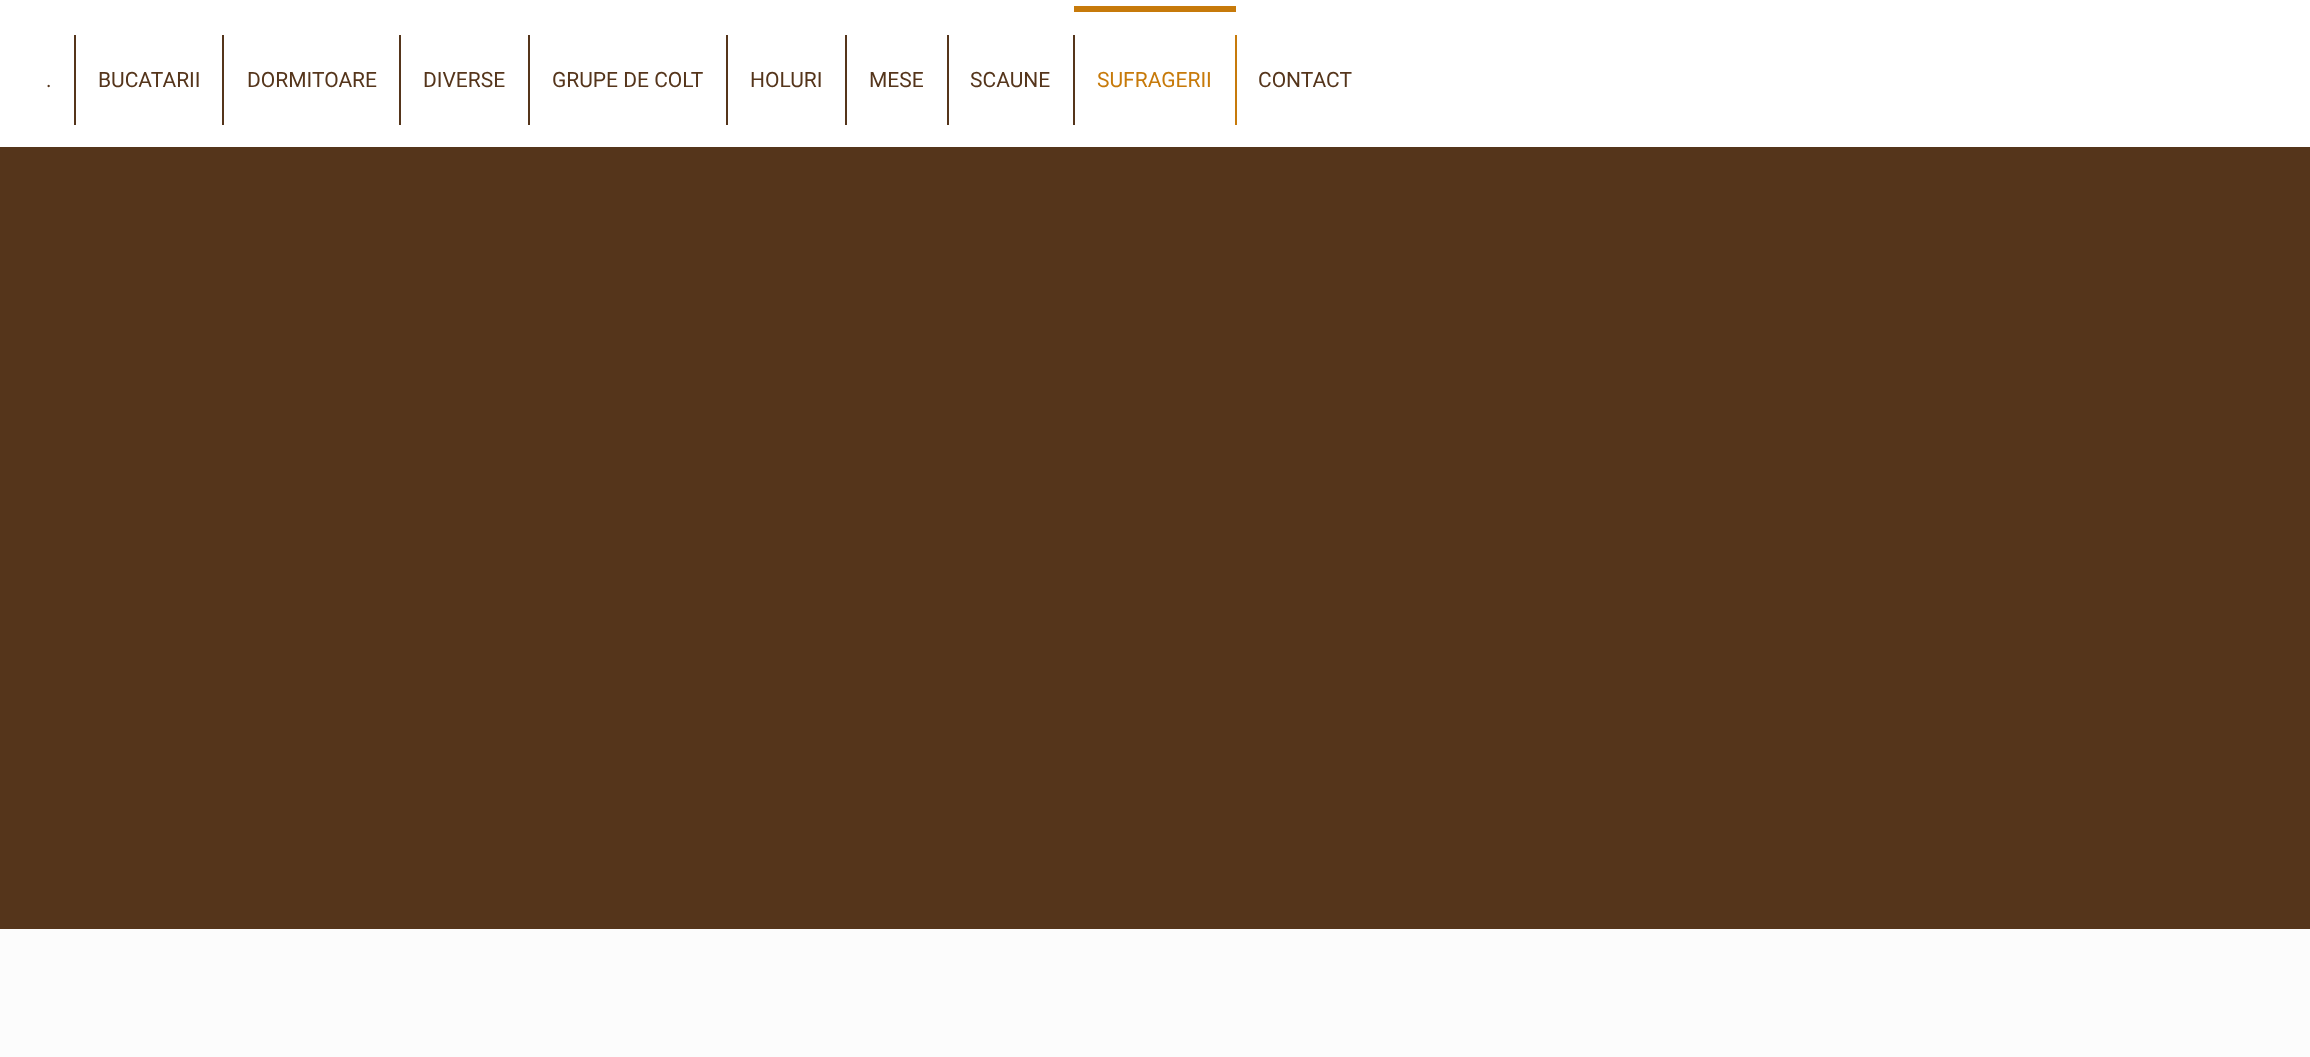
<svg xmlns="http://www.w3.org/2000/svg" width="2310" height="1057">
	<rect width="100%" height="100%" fill="#FCFCFC" />
	<rect x="0" y="147" width="2310" height="782" fill="#55351B" />
	<rect x="0" y="0" width="2310" height="147" fill="#FFFFFF" />
	<rect x="74" y="35" width="2" height="90" fill="#55351B" />
	<text x="46" y="87" font-family="Roboto" font-size="21" fill="#55351B">.</text>
	<rect x="222" y="35" width="2" height="90" fill="#55351B" />
	<text x="98" y="87" font-family="Roboto" font-size="21" fill="#55351B">BUCATARII</text>
	<rect x="399" y="35" width="2" height="90" fill="#55351B" />
	<text x="247" y="87" font-family="Roboto" font-size="21" fill="#55351B">DORMITOARE</text>
	<rect x="528" y="35" width="2" height="90" fill="#55351B" />
	<text x="423" y="87" font-family="Roboto" font-size="21" fill="#55351B">DIVERSE</text>
	<rect x="726" y="35" width="2" height="90" fill="#55351B" />
	<text x="552" y="87" font-family="Roboto" font-size="21" fill="#55351B">GRUPE DE COLT</text>
	<rect x="845" y="35" width="2" height="90" fill="#55351B" />
	<text x="750" y="87" font-family="Roboto" font-size="21" fill="#55351B">HOLURI</text>
	<rect x="947" y="35" width="2" height="90" fill="#55351B" />
	<text x="869" y="87" font-family="Roboto" font-size="21" fill="#55351B">MESE</text>
	<rect x="1073" y="35" width="2" height="90" fill="#55351B" />
	<text x="970" y="87" font-family="Roboto" font-size="21" fill="#55351B">SCAUNE</text>
	<rect x="1074" y="6" width="162" height="6" fill="#C77A0A" />
	<rect x="1235" y="35" width="2" height="90" fill="#C77A0A" />
	<text x="1097" y="87" font-family="Roboto" font-size="21" fill="#C77A0A">SUFRAGERII</text>
	<text x="1258" y="87" font-family="Roboto" font-size="21" fill="#55351B">CONTACT</text>
</svg>
